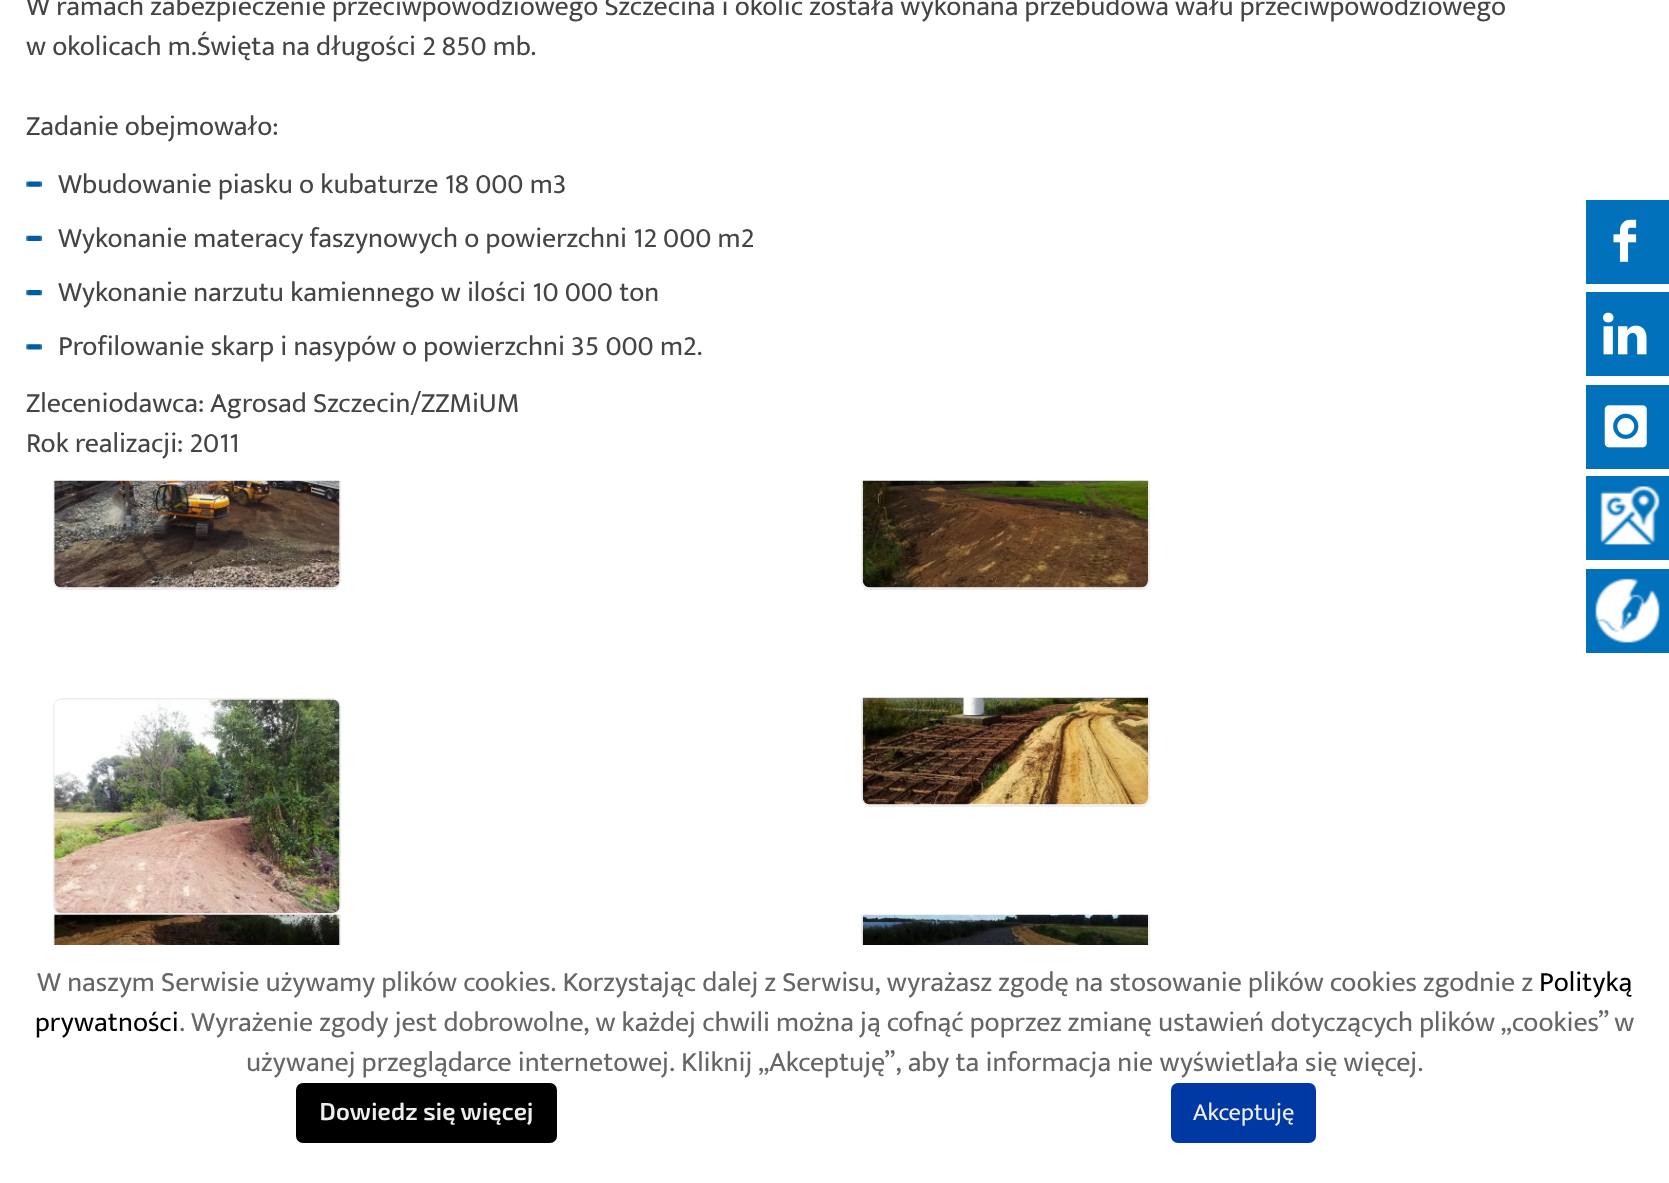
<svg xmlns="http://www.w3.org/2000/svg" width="1669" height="1183">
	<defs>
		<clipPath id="clip1"><rect x="53" y="481" width="288" height="217" /></clipPath>
		<clipPath id="clip2"><rect x="861" y="481" width="289" height="217" /></clipPath>
		<clipPath id="clip3"><rect x="861" y="698" width="289" height="217" /></clipPath>
		<clipPath id="clip4"><rect x="53" y="915" width="288" height="217" /></clipPath>
		<clipPath id="clip5"><rect x="861" y="915" width="289" height="217" /></clipPath>
	</defs>
	<rect width="100%" height="100%" fill="#FFFFFF" />
	<g font-family="Ek Mukta" font-size="28" fill="#464545">
		<text x="26" y="15">W ramach zabezpieczenie przeciwpowodziowego Szczecina i okolic została wykonana przebudowa wału przeciwpowodziowego</text>
		<text x="26" y="55">w okolicach m.Święta na długości 2 850 mb.</text>
		<text x="26" y="135">Zadanie obejmowało:</text>
	</g>
	<image x="26" y="181" width="16" height="6" href="assets/img1.png" />
	<text x="58" y="193" font-family="Ek Mukta" font-size="28" fill="#464545">Wbudowanie piasku o kubaturze 18 000 m3</text>
	<image x="26" y="235" width="16" height="6" href="assets/img2.png" />
	<text x="58" y="247" font-family="Ek Mukta" font-size="28" fill="#464545">Wykonanie materacy faszynowych o powierzchni 12 000 m2</text>
	<image x="26" y="290" width="16" height="6" href="assets/img3.png" />
	<text x="58" y="301" font-family="Ek Mukta" font-size="28" fill="#464545">Wykonanie narzutu kamiennego w ilości 10 000 ton</text>
	<image x="26" y="344" width="16" height="6" href="assets/img4.png" />
	<g font-family="Ek Mukta" font-size="28" fill="#464545">
		<text x="58" y="355">Profilowanie skarp i nasypów o powierzchni 35 000 m2.</text>
		<text x="26" y="412">Zleceniodawca: Agrosad Szczecin/ZZMiUM</text>
		<text x="26" y="452">Rok realizacji: 2011</text>
	</g>
	<g clip-path="url(#clip1)">
		<rect x="54" y="374" width="286" height="215" rx="8" fill="none" stroke="#EEEEEE" stroke-width="2" />
	</g>
	<image x="54" y="480" width="286" height="108" href="assets/img5.png" />
	<g clip-path="url(#clip2)">
		<rect x="862" y="374" width="287" height="215" rx="8" fill="none" stroke="#EEEEEE" stroke-width="2" />
	</g>
	<image x="862" y="480" width="286" height="108" href="assets/img6.png" />
	<rect x="54" y="699" width="286" height="215" rx="8" fill="none" stroke="#EEEEEE" stroke-width="2" />
	<image x="54" y="699" width="286" height="214" href="assets/img7.png" />
	<g clip-path="url(#clip3)">
		<rect x="862" y="591" width="287" height="215" rx="8" fill="none" stroke="#EEEEEE" stroke-width="2" />
	</g>
	<image x="862" y="697" width="286" height="108" href="assets/img8.png" />
	<g clip-path="url(#clip4)">
		<rect x="54" y="808" width="286" height="215" rx="8" fill="none" stroke="#EEEEEE" stroke-width="2" />
	</g>
	<image x="54" y="914" width="286" height="31" href="assets/img9.png" />
	<g clip-path="url(#clip5)">
		<rect x="862" y="808" width="287" height="215" rx="8" fill="none" stroke="#EEEEEE" stroke-width="2" />
	</g>
	<image x="862" y="914" width="286" height="31" href="assets/img10.png" />
	<rect x="1586" y="200" width="83" height="84" fill="#0171BB" />
	<image x="1613" y="219" width="24" height="43" href="assets/img11.png" />
	<rect x="1586" y="292" width="83" height="84" fill="#0171BB" />
	<image x="1603" y="312" width="44" height="43" href="assets/img12.png" />
	<rect x="1586" y="385" width="83" height="84" fill="#0171BB" />
	<image x="1604" y="405" width="43" height="43" href="assets/img13.png" />
	<rect x="1586" y="476" width="83" height="84" fill="#0171BB" />
	<image x="1600" y="486" width="60" height="59" href="assets/img14.png" />
	<rect x="1586" y="569" width="83" height="84" fill="#0171BB" />
	<image x="1595" y="578" width="65" height="65" href="assets/img15.png" />
	<rect x="53" y="945" width="1097" height="79" fill="#FFFFFF" />
	<text x="37" y="991" font-family="Ek Mukta" font-size="28" fill="#666666">W naszym Serwisie używamy plików cookies. Korzystając dalej z Serwisu, wyrażasz zgodę na stosowanie plików cookies zgodnie z</text>
	<g font-family="Ek Mukta" font-size="28" fill="#000000">
		<text x="1539" y="991">Polityką</text>
		<text x="35" y="1031">prywatności</text>
	</g>
	<g font-family="Ek Mukta" font-size="28" fill="#666666">
		<text x="179" y="1031">. Wyrażenie zgody jest dobrowolne, w każdej chwili można ją cofnąć poprzez zmianę ustawień dotyczących plików „cookies” w</text>
		<text x="246" y="1071">używanej przeglądarce internetowej. Kliknij „Akceptuję”, aby ta informacja nie wyświetlała się więcej.</text>
	</g>
	<rect x="296" y="1083" width="261" height="60" rx="7" fill="#000000" />
	<text x="319" y="1120" font-family="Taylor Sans" font-size="24.5" font-weight="600" fill="#EEEEEE">Dowiedz się więcej</text>
	<rect x="1171" y="1083" width="145" height="60" rx="7" fill="#0039A3" />
	<text x="1193" y="1120" font-family="Ek Mukta" font-size="24.5" fill="#EEEEEE">Akceptuję</text>
</svg>
